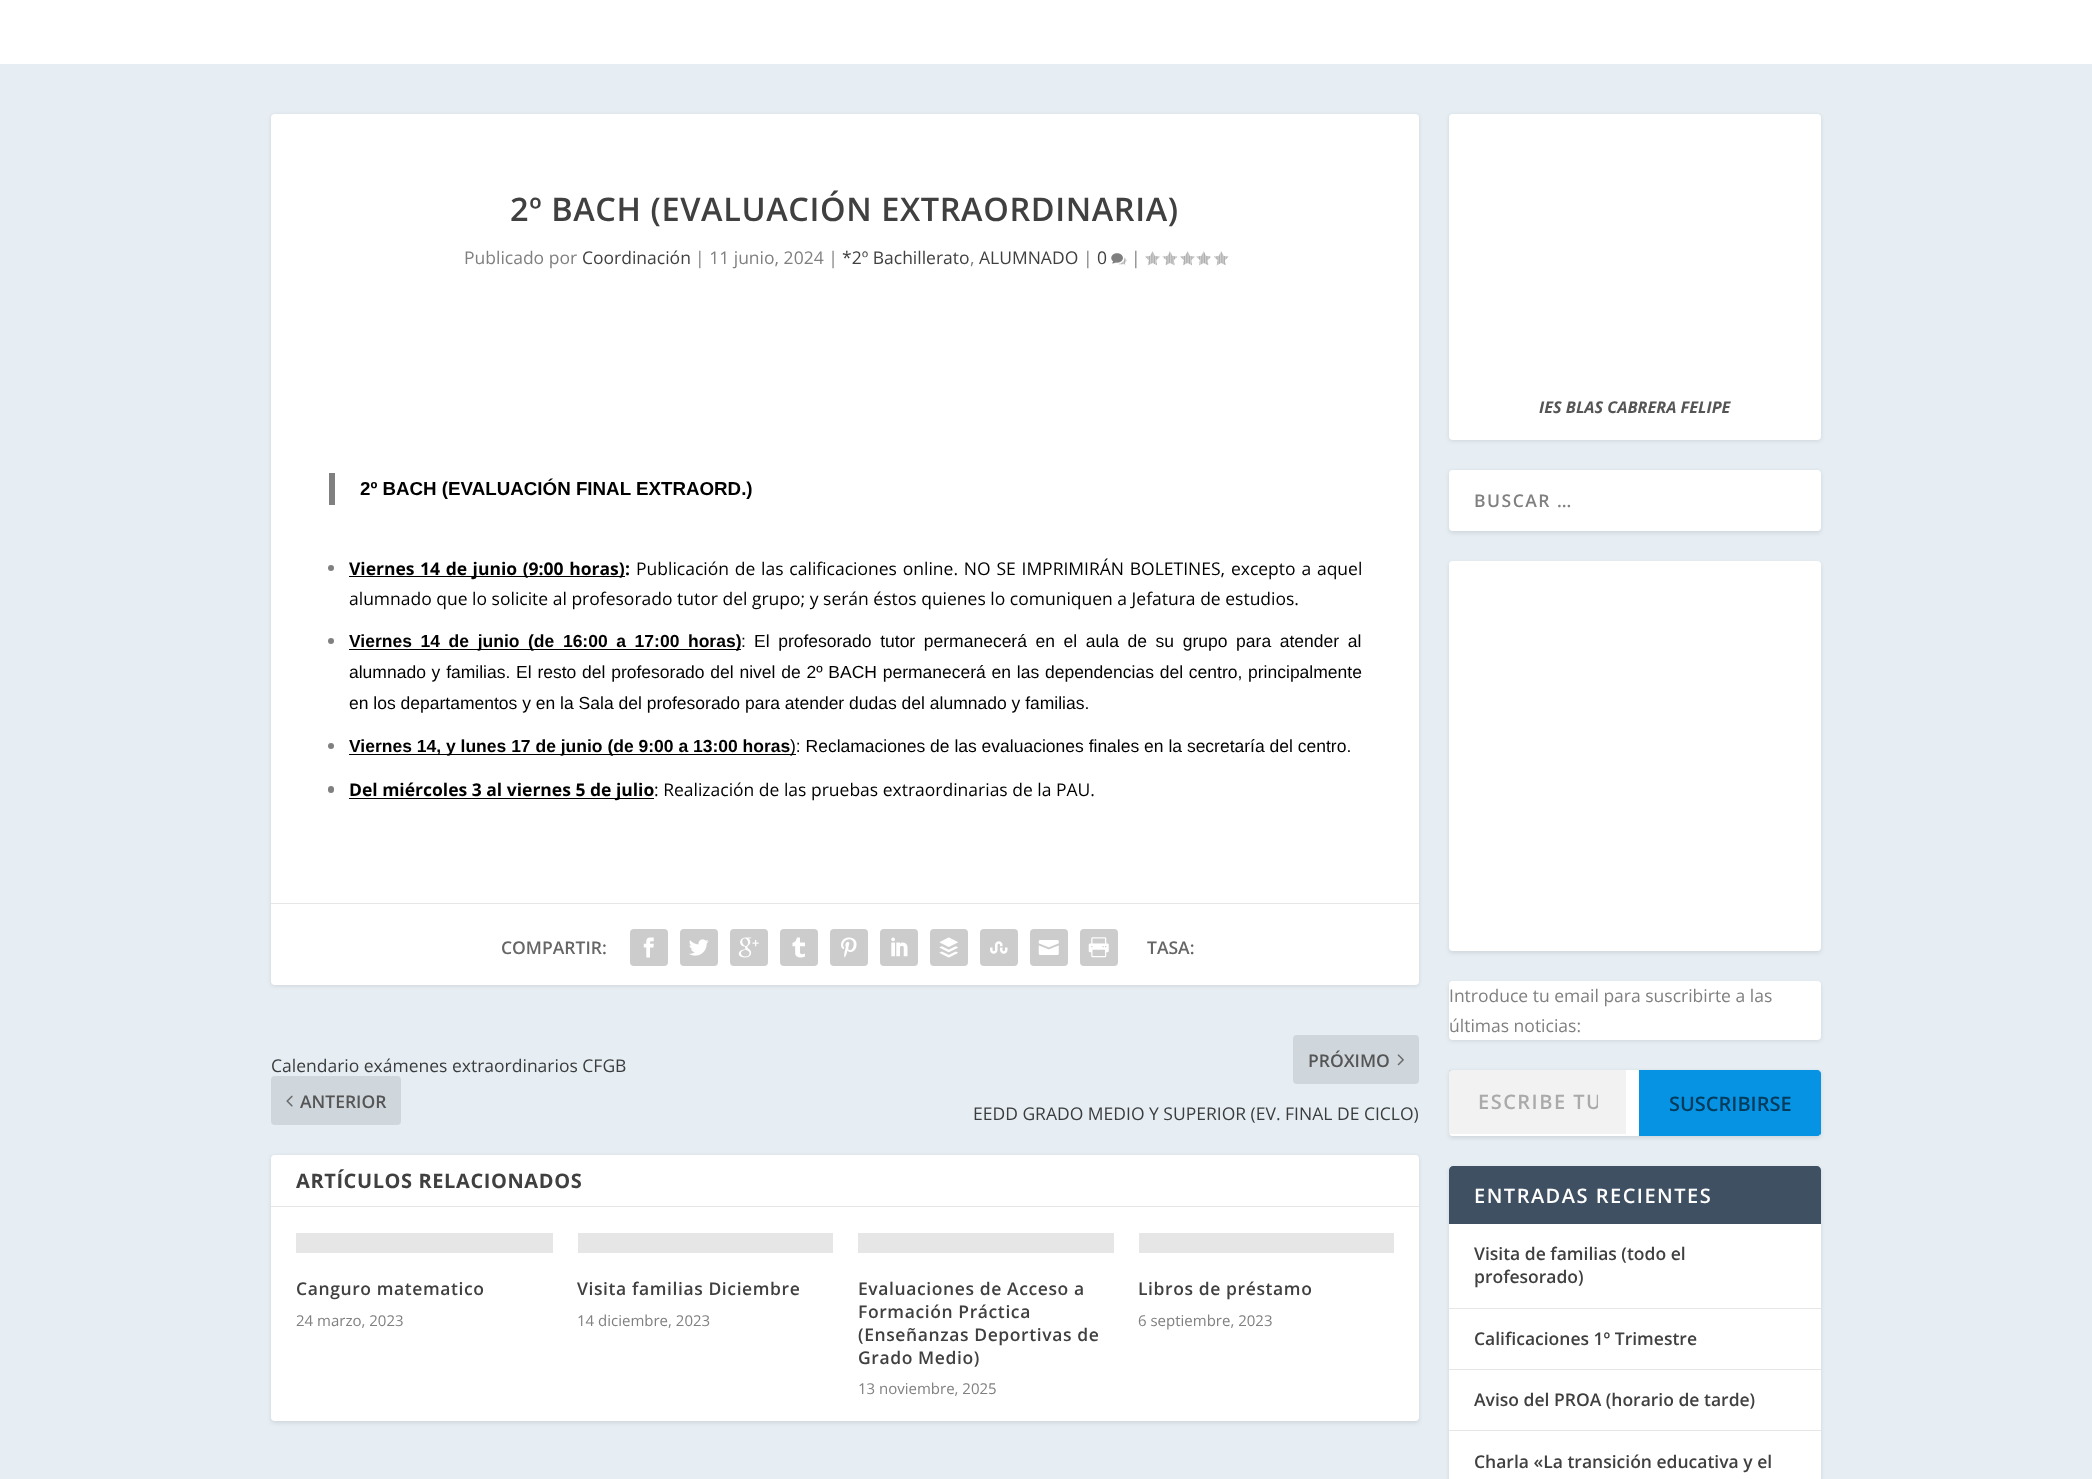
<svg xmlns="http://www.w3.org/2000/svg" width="2092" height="1479">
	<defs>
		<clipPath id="clip1"><rect x="1478" y="1088" width="120" height="27" /></clipPath>
	</defs>
	<rect width="100%" height="100%" fill="#E6EEF4" />
	<rect x="0" y="0" width="2092" height="64" fill="#FFFFFF" />
	<rect x="271" y="115" width="1148" height="871" rx="4" fill="#000000" fill-opacity="0.1" filter="blur(2px)" />
	<rect x="271" y="114" width="1148" height="871" rx="4" fill="#FFFFFF" />
	<text x="510" y="221" font-family="Open Sans" font-size="32.5" font-weight="600" letter-spacing="0.6" fill="#404040">2º BACH (EVALUACIÓN EXTRAORDINARIA)</text>
	<text x="464" y="264" font-family="Open Sans" font-size="17.5" fill="#808080">Publicado por</text>
	<text x="582" y="264" font-family="Open Sans" font-size="17.5" fill="#404040">Coordinación</text>
	<text x="695" y="264" font-family="Open Sans" font-size="17.5" fill="#808080">| 11 junio, 2024 |</text>
	<text x="842" y="264" font-family="Open Sans" font-size="17.5" fill="#404040">*2º Bachillerato</text>
	<text x="970" y="264" font-family="Open Sans" font-size="17.5" fill="#808080">,</text>
	<text x="979" y="264" font-family="Open Sans" font-size="17.5" fill="#404040">ALUMNADO</text>
	<text x="1083" y="264" font-family="Open Sans" font-size="17.5" fill="#808080">|</text>
	<text x="1097" y="264" font-family="Open Sans" font-size="17.5" fill="#404040">0</text>
	<image x="1111" y="253" width="16" height="12" href="assets/img1.png" />
	<text x="1131" y="264" font-family="Open Sans" font-size="17.5" fill="#808080">|</text>
	<image x="1145" y="251" width="15" height="15" href="assets/img2.png" />
	<image x="1162" y="251" width="16" height="15" href="assets/img3.png" />
	<image x="1180" y="251" width="15" height="15" href="assets/img2.png" />
	<image x="1196" y="251" width="15" height="15" href="assets/img4.png" />
	<image x="1214" y="251" width="15" height="15" href="assets/img5.png" />
	<rect x="329" y="473" width="6" height="32" fill="#808080" />
	<text x="360" y="495" font-family="Liberation Sans" font-size="18.75" font-weight="700" fill="#000000">2º BACH (EVALUACIÓN FINAL EXTRAORD.)</text>
	<circle cx="331" cy="568" r="3" fill="#808080" />
	<rect x="349" y="576" width="276" height="1" fill="#000000" />
	<g font-family="Open Sans" font-size="17.5" font-weight="700" fill="#000000">
		<text x="349" y="575" word-spacing="1">Viernes 14 de junio (9:00 horas)</text>
		<text x="625" y="575">:</text>
	</g>
	<g font-family="Open Sans" font-size="17.5" fill="#000000">
		<text x="636" y="575" word-spacing="1.25">Publicación de las calificaciones online. NO SE IMPRIMIRÁN BOLETINES, excepto a aquel</text>
		<text x="349" y="605">alumnado que lo solicite al profesorado tutor del grupo; y serán éstos quienes lo comuniquen a Jefatura de estudios.</text>
	</g>
	<circle cx="331" cy="641" r="3" fill="#808080" />
	<rect x="349" y="649" width="392" height="1" fill="#000000" />
	<text x="349" y="647" word-spacing="3.75" font-family="Liberation Sans" font-size="17.5" font-weight="700" fill="#000000">Viernes 14 de junio (de 16:00 a 17:00 horas)</text>
	<g font-family="Liberation Sans" font-size="17.5" fill="#000000">
		<text x="741" y="647">:</text>
		<text x="754" y="647" word-spacing="3.75">El profesorado tutor permanecerá en el aula de su grupo para atender al</text>
		<text x="349" y="678" word-spacing="0.9">alumnado y familias. El resto del profesorado del nivel de 2º BACH permanecerá en las dependencias del centro, principalmente</text>
		<text x="349" y="709">en los departamentos y en la Sala del profesorado para atender dudas del alumnado y familias.</text>
	</g>
	<circle cx="331" cy="746" r="3" fill="#808080" />
	<rect x="349" y="754" width="447" height="1" fill="#000000" />
	<text x="349" y="752" font-family="Liberation Sans" font-size="17.5" font-weight="700" fill="#000000">Viernes 14, y lunes 17 de junio (de 9:00 a 13:00 horas</text>
	<text x="790" y="752" font-family="Liberation Sans" font-size="17.5" fill="#000000">): Reclamaciones de las evaluaciones finales en la secretaría del centro.</text>
	<rect x="328" y="786" width="6" height="7" rx="3" fill="#808080" />
	<rect x="349" y="798" width="305" height="1" fill="#000000" />
	<text x="349" y="796" font-family="Open Sans" font-size="17.5" font-weight="700" fill="#000000">Del miércoles 3 al viernes 5 de julio</text>
	<text x="654" y="796" font-family="Open Sans" font-size="17.5" fill="#000000">: Realización de las pruebas extraordinarias de la PAU.</text>
	<rect x="271" y="903" width="1148" height="1" fill="#E6E6E6" />
	<text x="501" y="954" font-family="Open Sans" font-size="17.5" font-weight="600" fill="#666666">COMPARTIR:</text>
	<rect x="630" y="929" width="38" height="37" rx="4" fill="#CCCCCC" />
	<image x="643" y="937" width="11" height="21" href="assets/img6.png" />
	<rect x="680" y="929" width="38" height="37" rx="4" fill="#CCCCCC" />
	<image x="689" y="939" width="20" height="17" href="assets/img7.png" />
	<rect x="730" y="929" width="38" height="37" rx="4" fill="#CCCCCC" />
	<image x="738" y="937" width="21" height="21" href="assets/img8.png" />
	<rect x="780" y="929" width="38" height="37" rx="4" fill="#CCCCCC" />
	<image x="792" y="937" width="13" height="21" href="assets/img9.png" />
	<rect x="830" y="929" width="38" height="37" rx="4" fill="#CCCCCC" />
	<image x="841" y="937" width="16" height="21" href="assets/img10.png" />
	<rect x="880" y="929" width="38" height="37" rx="4" fill="#CCCCCC" />
	<image x="891" y="937" width="17" height="20" href="assets/img11.png" />
	<rect x="930" y="929" width="38" height="37" rx="4" fill="#CCCCCC" />
	<image x="939" y="937" width="19" height="21" href="assets/img12.png" />
	<rect x="980" y="929" width="38" height="37" rx="4" fill="#CCCCCC" />
	<image x="990" y="941" width="18" height="13" href="assets/img13.png" />
	<rect x="1030" y="929" width="38" height="37" rx="4" fill="#CCCCCC" />
	<image x="1038" y="940" width="21" height="15" href="assets/img14.png" />
	<rect x="1080" y="929" width="38" height="37" rx="4" fill="#CCCCCC" />
	<image x="1088" y="937" width="21" height="21" href="assets/img15.png" />
	<text x="1147" y="954" font-family="Open Sans" font-size="17.5" font-weight="600" fill="#666666">TASA:</text>
	<text x="271" y="1072" font-family="Open Sans" font-size="17.5" fill="#3A3C3D">Calendario exámenes extraordinarios CFGB</text>
	<rect x="271" y="1076" width="130" height="49" rx="4" fill="#CFD6DC" />
	<image x="286" y="1095" width="7" height="12" href="assets/img16.png" />
	<text x="300" y="1108" font-family="Open Sans" font-size="17.5" font-weight="600" fill="#555555">ANTERIOR</text>
	<rect x="1293" y="1035" width="126" height="49" rx="4" fill="#CFD6DC" />
	<text x="1308" y="1067" font-family="Open Sans" font-size="17.5" font-weight="600" fill="#555555">PRÓXIMO</text>
	<image x="1397" y="1054" width="7" height="12" href="assets/img17.png" />
	<text x="973" y="1120" font-family="Open Sans" font-size="17.5" fill="#3A3C3D">EEDD GRADO MEDIO Y SUPERIOR (EV. FINAL DE CICLO)</text>
	<rect x="271" y="1156" width="1148" height="267" rx="4" fill="#000000" fill-opacity="0.1" filter="blur(2px)" />
	<rect x="271" y="1155" width="1148" height="266" rx="4" fill="#FFFFFF" />
	<rect x="271" y="1206" width="1148" height="1" fill="#E6E6E6" />
	<text x="296" y="1188" font-family="Open Sans" font-size="20" font-weight="700" letter-spacing="0.6" fill="#404040">ARTÍCULOS RELACIONADOS</text>
	<rect x="296" y="1233" width="257" height="20" fill="#E6E6E6" />
	<text x="296" y="1295" font-family="Open Sans" font-size="17.5" font-weight="600" letter-spacing="0.6" fill="#404040">Canguro matematico</text>
	<text x="296" y="1326" font-family="Open Sans" font-size="15" fill="#808080">24 marzo, 2023</text>
	<rect x="578" y="1233" width="255" height="20" fill="#E6E6E6" />
	<text x="577" y="1295" font-family="Open Sans" font-size="17.5" font-weight="600" letter-spacing="0.6" fill="#404040">Visita familias Diciembre</text>
	<text x="577" y="1326" font-family="Open Sans" font-size="15" fill="#808080">14 diciembre, 2023</text>
	<rect x="858" y="1233" width="256" height="20" fill="#E6E6E6" />
	<g font-family="Open Sans" font-size="17.5" font-weight="600" letter-spacing="0.6" fill="#404040">
		<text x="858" y="1295">Evaluaciones de Acceso a</text>
		<text x="858" y="1318">Formación Práctica</text>
		<text x="858" y="1341">(Enseñanzas Deportivas de</text>
		<text x="858" y="1364">Grado Medio)</text>
	</g>
	<text x="858" y="1394" font-family="Open Sans" font-size="15" fill="#808080">13 noviembre, 2025</text>
	<rect x="1139" y="1233" width="255" height="20" fill="#E6E6E6" />
	<text x="1138" y="1295" font-family="Open Sans" font-size="17.5" font-weight="600" letter-spacing="0.6" fill="#404040">Libros de préstamo</text>
	<text x="1138" y="1326" font-family="Open Sans" font-size="15" fill="#808080">6 septiembre, 2023</text>
	<rect x="1449" y="115" width="372" height="326" rx="4" fill="#000000" fill-opacity="0.1" filter="blur(2px)" />
	<rect x="1449" y="114" width="372" height="326" rx="4" fill="#FFFFFF" />
	<text x="1539" y="413" font-family="Open Sans" font-size="16.25" font-weight="700" font-style="italic" fill="#555555">IES BLAS CABRERA FELIPE</text>
	<rect x="1449" y="471" width="372" height="62" rx="4" fill="#000000" fill-opacity="0.1" filter="blur(2px)" />
	<rect x="1449" y="470" width="372" height="61" rx="4" fill="#FFFFFF" />
	<text x="1474" y="507" font-family="Open Sans" font-size="17.5" font-weight="600" letter-spacing="1.5" fill="#808080">BUSCAR …</text>
	<rect x="1449" y="563" width="372" height="390" rx="4" fill="#000000" fill-opacity="0.1" filter="blur(2px)" />
	<rect x="1449" y="561" width="372" height="390" rx="4" fill="#FFFFFF" />
	<rect x="1449" y="983" width="372" height="58" rx="4" fill="#000000" fill-opacity="0.1" filter="blur(2px)" />
	<rect x="1449" y="981" width="372" height="59" rx="4" fill="#FFFFFF" />
	<g font-family="Open Sans" font-size="17.5" fill="#808080">
		<text x="1449" y="1002">Introduce tu email para suscribirte a las</text>
		<text x="1449" y="1032">últimas noticias:</text>
	</g>
	<rect x="1449" y="1071" width="372" height="67" rx="4" fill="#000000" fill-opacity="0.1" filter="blur(2px)" />
	<rect x="1449" y="1070" width="372" height="66" rx="4" fill="#FFFFFF" />
	<rect x="1449" y="1070" width="177" height="64" fill="#000000" fill-opacity="0.05" />
	<g clip-path="url(#clip1)">
		<text x="1478" y="1109" font-family="Open Sans" font-size="20" font-weight="600" letter-spacing="1.5" fill="#AAAAAA">ESCRIBE TU</text>
	</g>
	<path d="M1639 1070H1817C1819 1070 1821 1072 1821 1074V1132C1821 1134 1819 1136 1817 1136H1639Z" fill="#0693E3" />
	<path d="M1639 1070V1136H1817L1820 1135H1640V1071H1820L1817 1070ZM1821 1074L1820 1071V1135C1821 1134 1821 1133 1821 1132Z" fill="#0693E3" fill-rule="evenodd" />
	<text x="1669" y="1111" font-family="Open Sans" font-size="20" font-weight="600" fill="#023B5B">SUSCRIBIRSE</text>
	<rect x="1449" y="1168" width="372" height="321" rx="4" fill="#000000" fill-opacity="0.1" filter="blur(2px)" />
	<rect x="1449" y="1166" width="372" height="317" rx="4" fill="#FFFFFF" />
	<path d="M1453 1166H1817C1819 1166 1821 1168 1821 1170V1224H1449V1170C1449 1168 1451 1166 1453 1166Z" fill="#3E5062" />
	<text x="1474" y="1203" font-family="Open Sans" font-size="20" font-weight="600" letter-spacing="1.5" fill="#FFFFFF">ENTRADAS RECIENTES</text>
	<rect x="1449" y="1308" width="372" height="1" fill="#E6E6E6" />
	<g font-family="Open Sans" font-size="17.5" font-weight="600" fill="#404040">
		<text x="1474" y="1260">Visita de familias (todo el</text>
		<text x="1474" y="1283">profesorado)</text>
	</g>
	<rect x="1449" y="1369" width="372" height="1" fill="#E6E6E6" />
	<text x="1474" y="1345" font-family="Open Sans" font-size="17.5" font-weight="600" fill="#404040">Calificaciones 1º Trimestre</text>
	<rect x="1449" y="1430" width="372" height="1" fill="#E6E6E6" />
	<g font-family="Open Sans" font-size="17.5" font-weight="600" fill="#404040">
		<text x="1474" y="1406">Aviso del PROA (horario de tarde)</text>
		<text x="1474" y="1468">Charla «La transición educativa y el</text>
	</g>
</svg>
